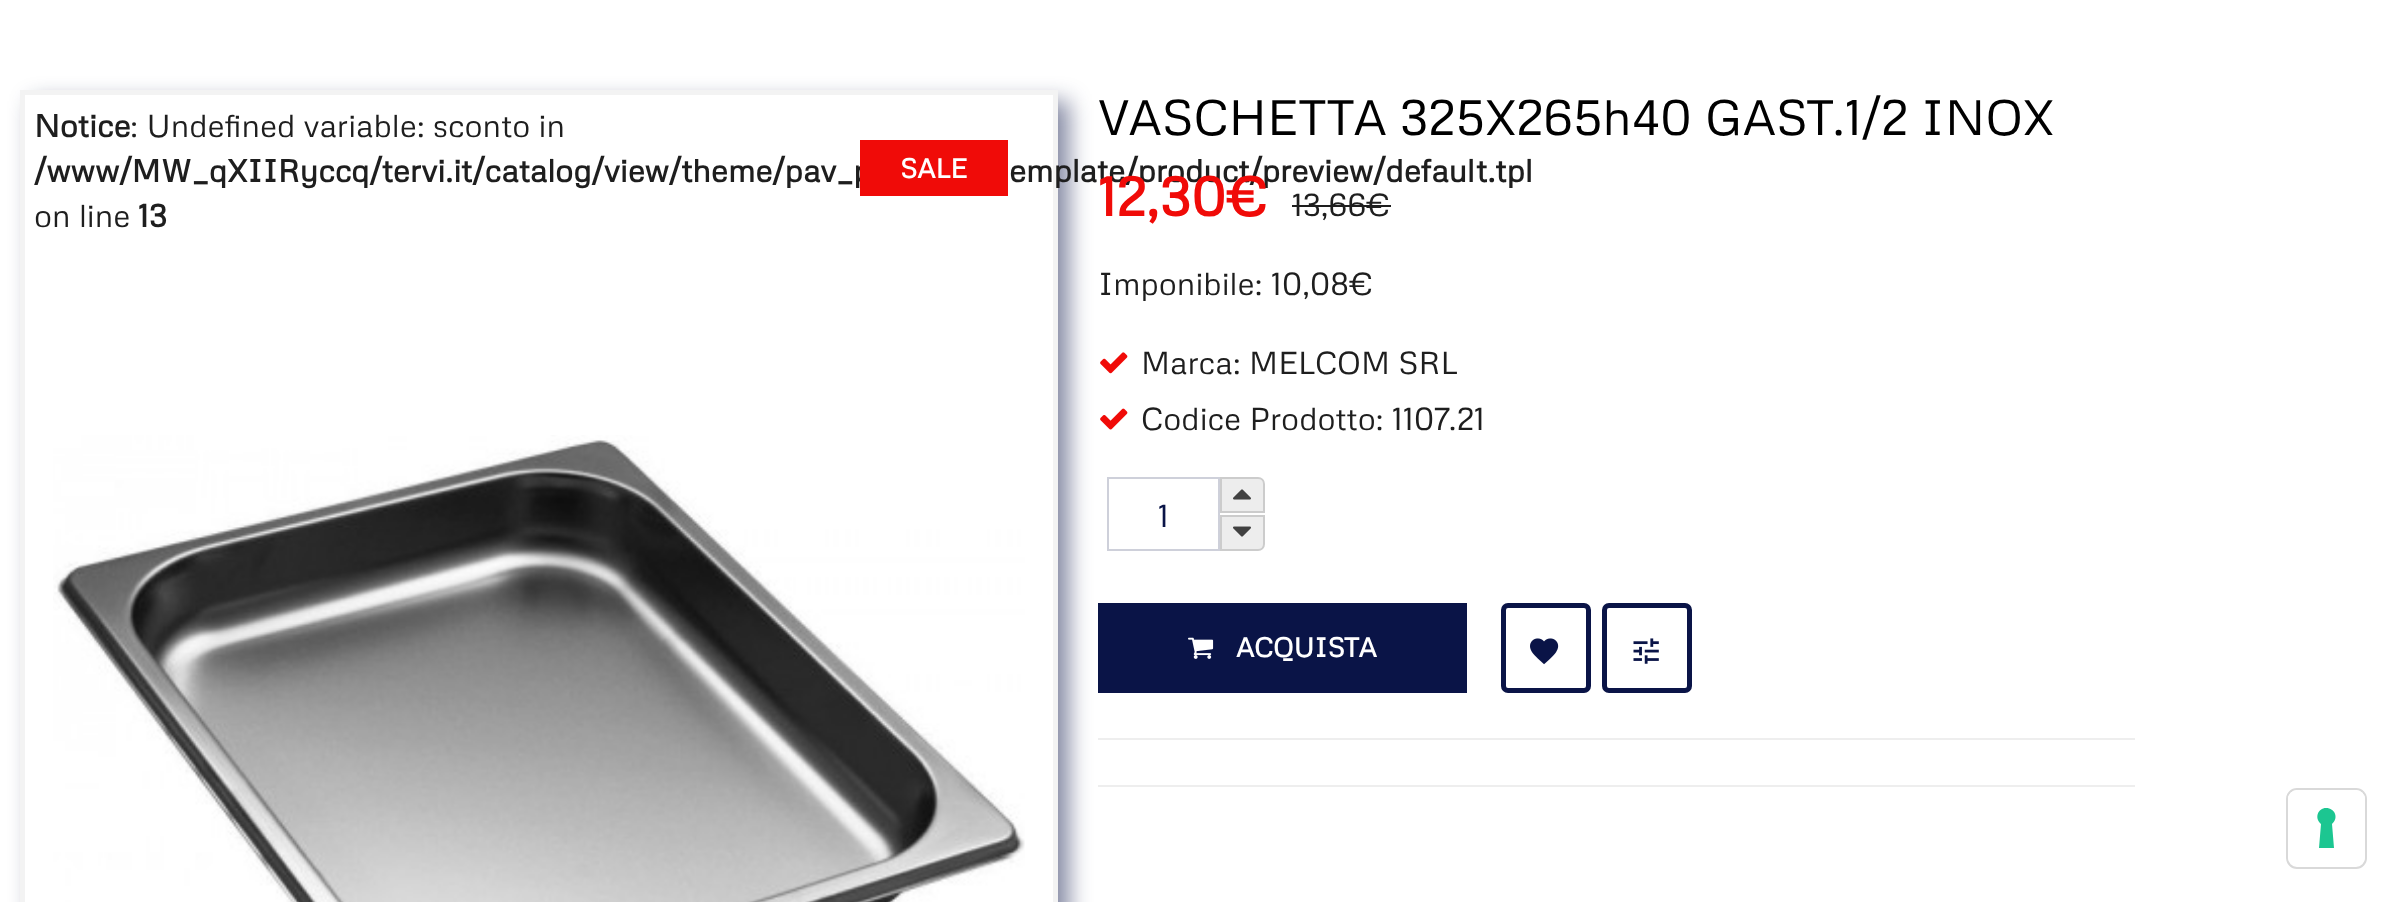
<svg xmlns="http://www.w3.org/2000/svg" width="2400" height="902">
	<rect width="100%" height="100%" fill="#FFFFFF" />
	<rect x="32" y="101" width="1037" height="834" fill="#0A1447" fill-opacity="0.5" filter="blur(11px)" />
	<rect x="22.5" y="92.5" width="1033" height="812" fill="#FFFFFF" stroke="#F3F3F3" stroke-width="5" />
	<text x="34" y="137" font-family="Metrophobic" font-size="31.5" font-weight="700" fill="#1E1E1E">Notice</text>
	<text x="130" y="137" font-family="Metrophobic" font-size="31.5" fill="#1E1E1E">: Undefined variable: sconto in</text>
	<text x="34" y="182" font-family="Metrophobic" font-size="31.5" font-weight="700" fill="#1E1E1E">/www/MW_qXIIRyccq/tervi.it/catalog/view/theme/pav_p</text>
	<rect x="860" y="140" width="148" height="56" fill="#F00B08" />
	<text x="900" y="178" font-family="Metrophobic" font-size="27" font-weight="700" fill="#FFFFFF">SALE</text>
	<text x="1009" y="182" font-family="Metrophobic" font-size="31.5" font-weight="700" fill="#1E1E1E">emplate/product/preview/default.tpl</text>
	<text x="34" y="227" font-family="Metrophobic" font-size="31.5" fill="#1E1E1E">on line</text>
	<text x="138" y="227" font-family="Metrophobic" font-size="31.5" font-weight="700" fill="#1E1E1E">13</text>
	<image x="53" y="435" width="972" height="467" href="assets/img1.png" />
	<text x="1098" y="135" font-family="Metrophobic" font-size="49.5" fill="#000000">VASCHETTA 325X265h40 GAST.1/2 INOX</text>
	<text x="1098" y="216" font-family="Metrophobic" font-size="54" font-weight="700" fill="#F00B08">12,30€</text>
	<text x="1292" y="216" font-family="Metrophobic" font-size="31.5" fill="#1E1E1E">13,66€</text>
	<rect x="1292" y="205" width="99" height="2" fill="#1E1E1E" />
	<text x="1098" y="295" font-family="Metrophobic" font-size="31.5" fill="#1E1E1E">Imponibile: 10,08€</text>
	<image x="1100" y="352" width="28" height="22" href="assets/img2.png" />
	<text x="1141" y="374" font-family="Metrophobic" font-size="31.5" fill="#1E1E1E">Marca: MELCOM SRL</text>
	<image x="1100" y="408" width="28" height="22" href="assets/img3.png" />
	<text x="1141" y="430" font-family="Metrophobic" font-size="31.5" fill="#1E1E1E">Codice Prodotto: 1107.21</text>
	<rect x="1108" y="478" width="111" height="72" fill="none" stroke="#CED0DA" stroke-width="2" />
	<text x="1158" y="527" font-family="Metrophobic" font-size="31.5" fill="#0A1447">1</text>
	<path d="M1221 478H1258C1261.5 478 1264 480.5 1264 484V512H1221Z" fill="#EDEDED" stroke="#CCCCCC" stroke-width="2" />
	<image x="1233" y="489" width="18" height="11" href="assets/img4.png" />
	<path d="M1221 516H1264V544C1264 547.5 1261.5 550 1258 550H1221Z" fill="#EDEDED" stroke="#CCCCCC" stroke-width="2" />
	<image x="1233" y="526" width="18" height="11" href="assets/img5.png" />
	<rect x="1098" y="603" width="369" height="90" fill="#0A1447" />
	<image x="1188" y="637" width="26" height="22" href="assets/img6.png" />
	<text x="1236" y="657" font-family="Metrophobic" font-size="27" font-weight="700" fill="#FFFFFF">ACQUISTA</text>
	<rect x="1503.5" y="605.5" width="85" height="85" rx="4.5" fill="none" stroke="#0A1447" stroke-width="5" />
	<image x="1530" y="638" width="29" height="27" href="assets/img7.png" />
	<rect x="1604.5" y="605.5" width="85" height="85" rx="4.5" fill="none" stroke="#0A1447" stroke-width="5" />
	<image x="1633" y="638" width="26" height="26" href="assets/img8.png" />
	<rect x="1098" y="738" width="1037" height="2" fill="#EEEEEE" />
	<rect x="1098" y="785" width="1037" height="2" fill="#EEEEEE" />
	<rect x="2287" y="789" width="79" height="79" rx="10" fill="none" stroke="#D9D9D9" stroke-width="2" />
	<rect x="2288" y="790" width="77" height="76" rx="9" fill="#FFFFFF" />
	<path d="M2326 808C2335 808 2339 818 2332 824L2334 848H2319L2321 824C2314 818 2318 808 2326 808Z" fill="#1CC691" fill-rule="evenodd" />
</svg>
